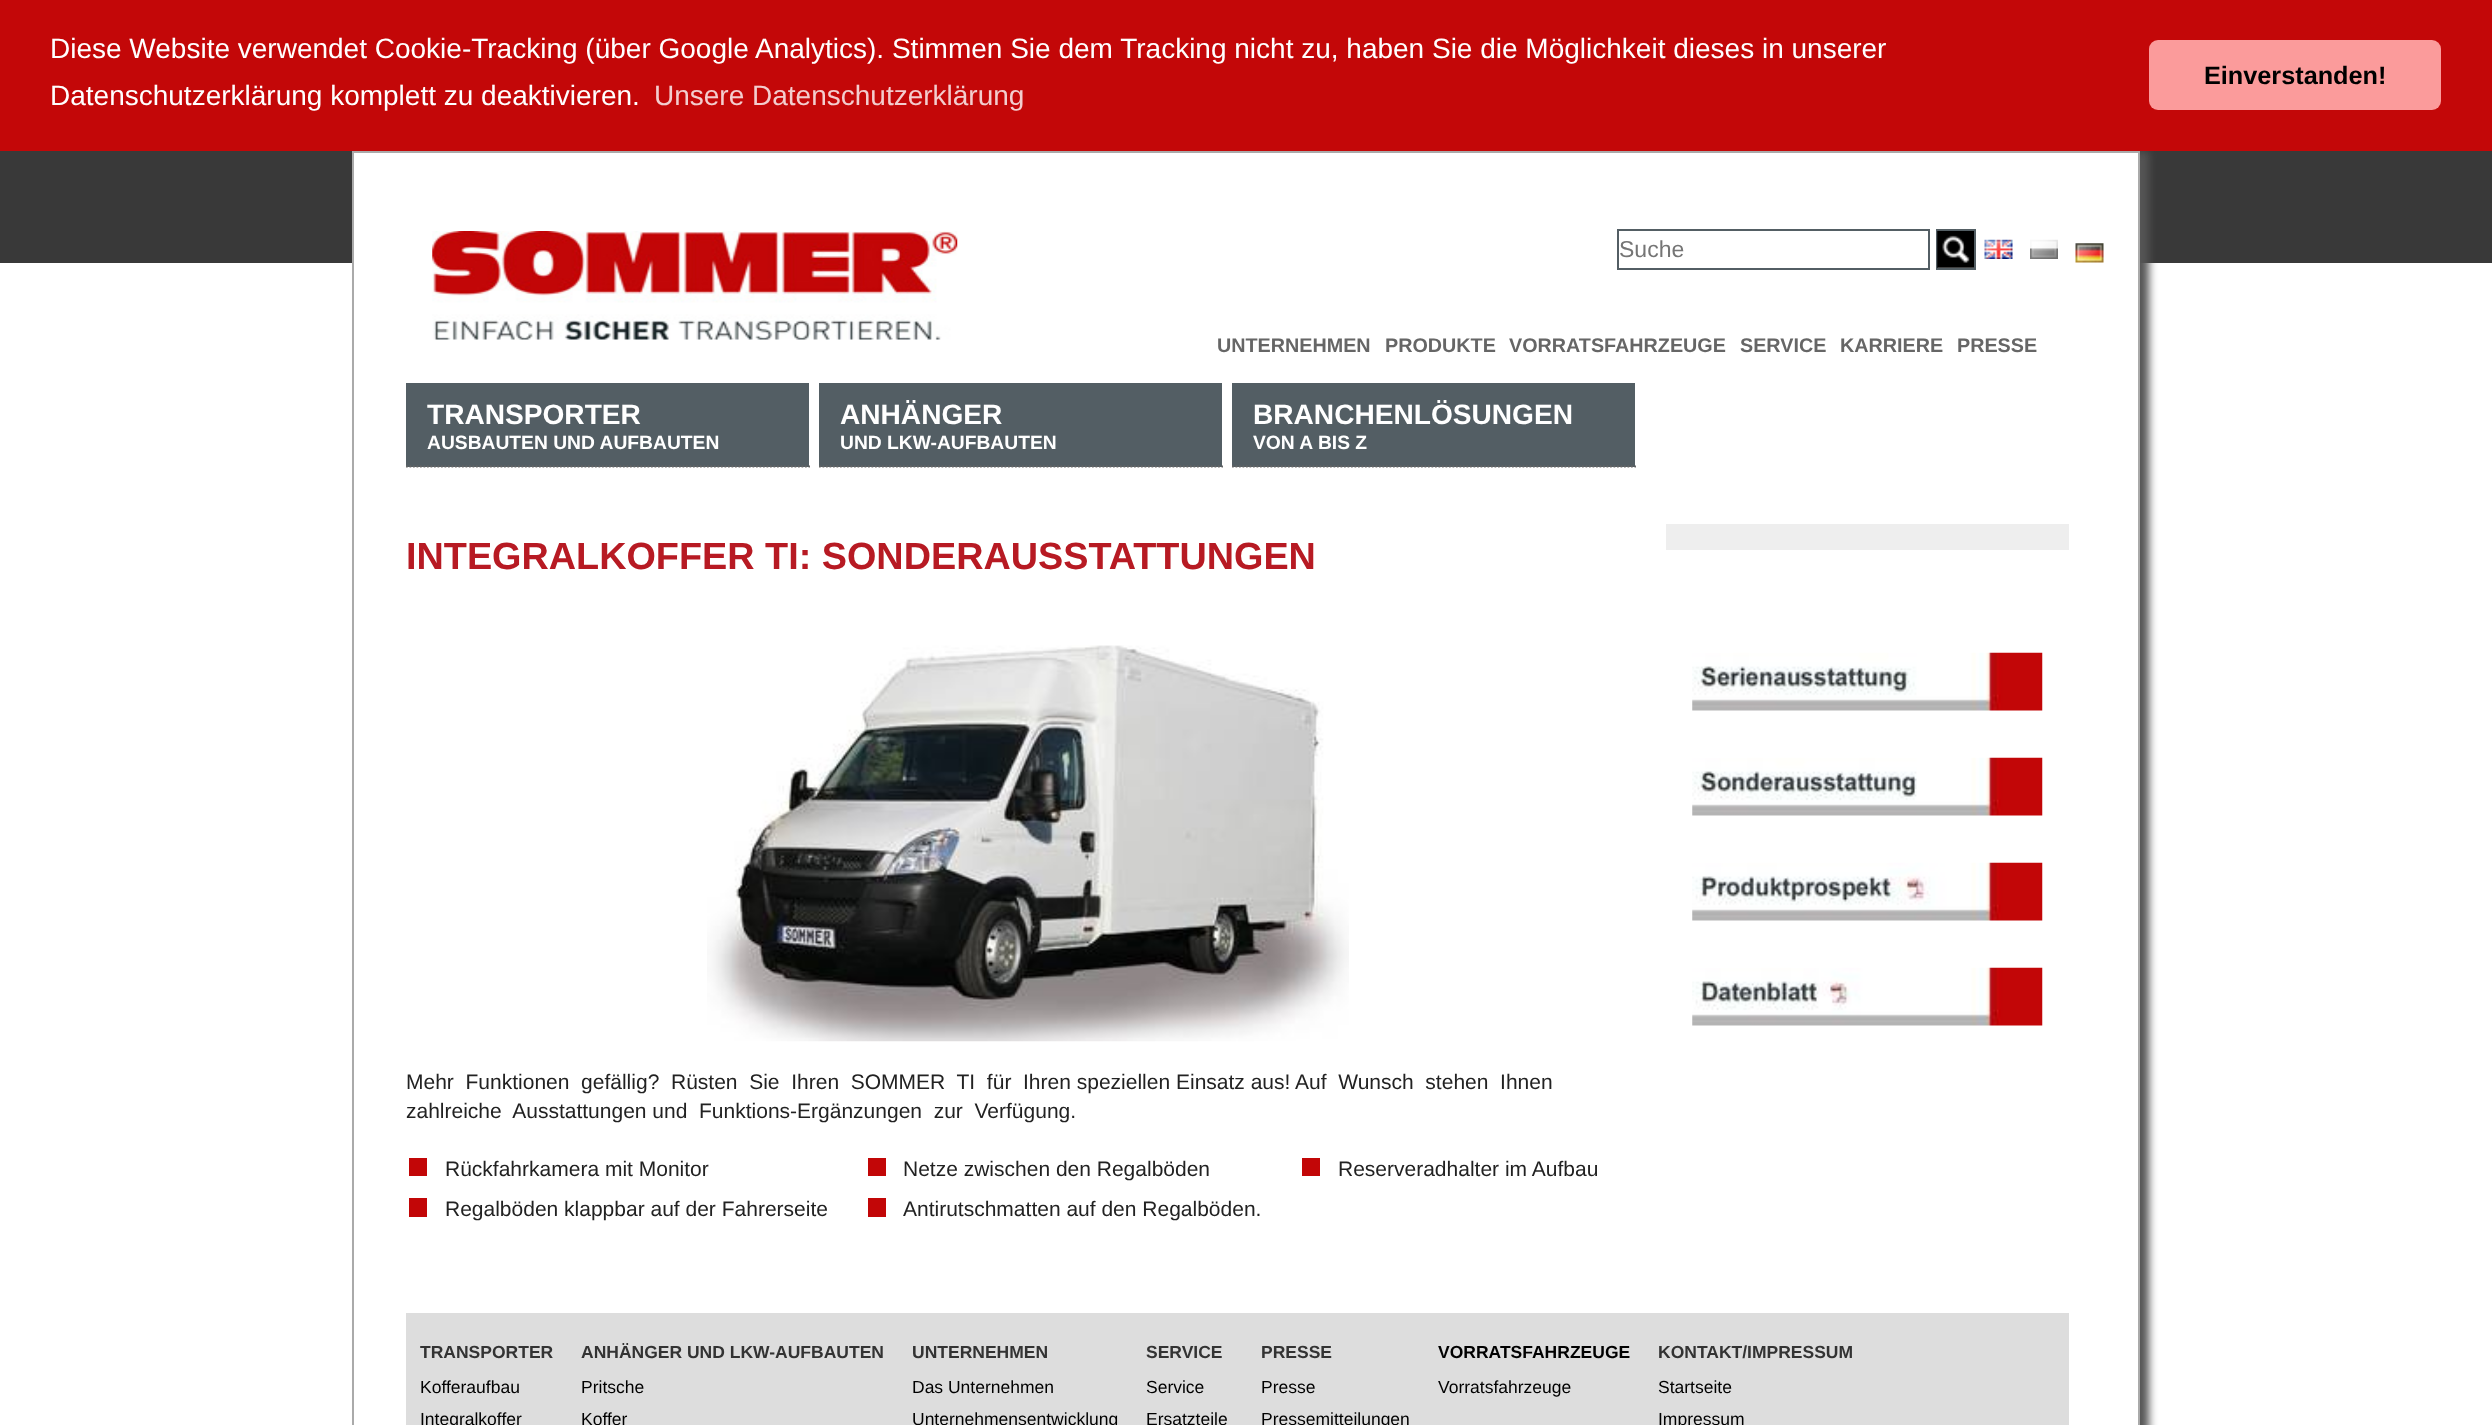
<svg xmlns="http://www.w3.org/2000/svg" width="2492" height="1425">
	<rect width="100%" height="100%" fill="#FFFFFF" />
	<rect x="0" y="151" width="2492" height="112" fill="#393939" />
	<rect x="361" y="151" width="1788" height="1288" fill="#555555" filter="blur(4.5px)" />
	<rect x="0" y="0" width="2492" height="151" fill="#C30708" />
	<g font-family="Liberation Sans" font-size="28" fill="#FFFFFF">
		<text x="50" y="58">Diese Website verwendet Cookie-Tracking (über Google Analytics). Stimmen Sie dem Tracking nicht zu, haben Sie die Möglichkeit dieses in unserer</text>
		<text x="50" y="105">Datenschutzerklärung komplett zu deaktivieren.</text>
	</g>
	<text x="654" y="105" font-family="Liberation Sans" font-size="28" fill="#F3CDCE">Unsere Datenschutzerklärung</text>
	<rect x="2149" y="40" width="292" height="70" rx="9" fill="#FB9B9B" />
	<text x="2204" y="84" font-family="Liberation Sans" font-size="25.25" font-weight="700" fill="#000000">Einverstanden!</text>
	<rect x="353" y="152" width="1786" height="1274" fill="#FFFFFF" stroke="#AAAAAA" stroke-width="2" />
	<image x="432" y="231" width="526" height="109" href="assets/img1.png" />
	<rect x="1618" y="230" width="311" height="39" fill="none" stroke="#535E64" stroke-width="2" />
	<text x="1619" y="257" font-family="Liberation Sans" font-size="23" fill="#757575">Suche</text>
	<rect x="1937" y="230" width="38" height="39" fill="none" stroke="#535E64" stroke-width="2" />
	<image x="1937" y="231" width="37" height="37" href="assets/img2.png" />
	<image x="1984" y="239" width="29" height="20" href="assets/img3.png" />
	<image x="2030" y="239" width="28" height="20" href="assets/img4.png" />
	<image x="2075" y="243" width="29" height="20" href="assets/img5.png" />
	<g font-family="Liberation Sans" font-size="19.75" font-weight="700" fill="#666666">
		<text x="1217" y="352">UNTERNEHMEN</text>
		<text x="1385" y="352">PRODUKTE</text>
		<text x="1509" y="352">VORRATSFAHRZEUGE</text>
		<text x="1740" y="352">SERVICE</text>
		<text x="1840" y="352">KARRIERE</text>
		<text x="1957" y="352">PRESSE</text>
	</g>
	<rect x="406" y="383" width="403" height="84" fill="#535E64" />
	<path d="M406 466.5H810" fill="none" stroke="#666666" stroke-width="1.8" stroke-dasharray="1.75 1.75" />
	<text x="427" y="424" font-family="Liberation Sans" font-size="28.1" font-weight="700" fill="#FFFFFF">TRANSPORTER</text>
	<text x="427" y="449" font-family="Liberation Sans" font-size="19.25" font-weight="700" fill="#FFFFFF">AUSBAUTEN UND AUFBAUTEN</text>
	<rect x="819" y="383" width="403" height="84" fill="#535E64" />
	<path d="M819 466.5H1223" fill="none" stroke="#666666" stroke-width="1.8" stroke-dasharray="1.75 1.75" />
	<text x="840" y="424" font-family="Liberation Sans" font-size="28.1" font-weight="700" fill="#FFFFFF">ANHÄNGER</text>
	<text x="840" y="449" font-family="Liberation Sans" font-size="19.25" font-weight="700" fill="#FFFFFF">UND LKW-AUFBAUTEN</text>
	<rect x="1232" y="383" width="403" height="84" fill="#535E64" />
	<path d="M1232 466.5H1636" fill="none" stroke="#666666" stroke-width="1.8" stroke-dasharray="1.75 1.75" />
	<text x="1253" y="424" font-family="Liberation Sans" font-size="28.1" font-weight="700" fill="#FFFFFF">BRANCHENLÖSUNGEN</text>
	<text x="1253" y="449" font-family="Liberation Sans" font-size="19.25" font-weight="700" fill="#FFFFFF">VON A BIS Z</text>
	<text x="406" y="569" font-family="Liberation Sans" font-size="37.8" font-weight="700" fill="#B71A23">INTEGRALKOFFER TI: SONDERAUSSTATTUNGEN</text>
	<image x="707" y="645" width="642" height="397" href="assets/img6.png" />
	<g font-family="Liberation Sans" font-size="21" fill="#222222">
		<text x="406" y="1089" xml:space="preserve">Mehr  Funktionen  gefällig?  Rüsten  Sie  Ihren  SOMMER  TI  für  Ihren speziellen Einsatz aus! Auf  Wunsch  stehen  Ihnen</text>
		<text x="406" y="1118" xml:space="preserve">zahlreiche  Ausstattungen und  Funktions-Ergänzungen  zur  Verfügung.</text>
	</g>
	<rect x="409" y="1158" width="18" height="18" fill="#C20607" />
	<text x="445" y="1176" font-family="Liberation Sans" font-size="21" fill="#222222">Rückfahrkamera mit Monitor</text>
	<rect x="868" y="1158" width="18" height="18" fill="#C20607" />
	<text x="903" y="1176" font-family="Liberation Sans" font-size="21" fill="#222222">Netze zwischen den Regalböden</text>
	<rect x="1302" y="1158" width="18" height="18" fill="#C20607" />
	<text x="1338" y="1176" font-family="Liberation Sans" font-size="21" fill="#222222">Reserveradhalter im Aufbau</text>
	<rect x="409" y="1198" width="18" height="19" fill="#C20607" />
	<text x="445" y="1216" font-family="Liberation Sans" font-size="21" fill="#222222">Regalböden klappbar auf der Fahrerseite</text>
	<rect x="868" y="1198" width="18" height="19" fill="#C20607" />
	<text x="903" y="1216" font-family="Liberation Sans" font-size="21" fill="#222222">Antirutschmatten auf den Regalböden.</text>
	<rect x="1666" y="524" width="403" height="26" fill="#EEEEEE" />
	<image x="1692" y="652" width="351" height="59" href="assets/img7.png" />
	<image x="1692" y="757" width="351" height="59" href="assets/img8.png" />
	<image x="1692" y="862" width="351" height="59" href="assets/img9.png" />
	<image x="1692" y="967" width="351" height="59" href="assets/img10.png" />
	<rect x="406" y="1313" width="1663" height="112" fill="#DDDDDD" />
	<text x="420" y="1358" font-family="Liberation Sans" font-size="17.5" font-weight="700" fill="#333333">TRANSPORTER</text>
	<g font-family="Liberation Sans" font-size="17.5" fill="#000000">
		<text x="420" y="1393">Kofferaufbau</text>
		<text x="420" y="1425">Integralkoffer</text>
	</g>
	<text x="581" y="1358" font-family="Liberation Sans" font-size="17.5" font-weight="700" fill="#333333">ANHÄNGER UND LKW-AUFBAUTEN</text>
	<g font-family="Liberation Sans" font-size="17.5" fill="#000000">
		<text x="581" y="1393">Pritsche</text>
		<text x="581" y="1425">Koffer</text>
	</g>
	<text x="912" y="1358" font-family="Liberation Sans" font-size="17.5" font-weight="700" fill="#333333">UNTERNEHMEN</text>
	<g font-family="Liberation Sans" font-size="17.5" fill="#000000">
		<text x="912" y="1393">Das Unternehmen</text>
		<text x="912" y="1425">Unternehmensentwicklung</text>
	</g>
	<text x="1146" y="1358" font-family="Liberation Sans" font-size="17.5" font-weight="700" fill="#333333">SERVICE</text>
	<g font-family="Liberation Sans" font-size="17.5" fill="#000000">
		<text x="1146" y="1393">Service</text>
		<text x="1146" y="1425">Ersatzteile</text>
	</g>
	<text x="1261" y="1358" font-family="Liberation Sans" font-size="17.5" font-weight="700" fill="#333333">PRESSE</text>
	<g font-family="Liberation Sans" font-size="17.5" fill="#000000">
		<text x="1261" y="1393">Presse</text>
		<text x="1261" y="1425">Pressemitteilungen</text>
	</g>
	<text x="1438" y="1358" font-family="Liberation Sans" font-size="17.5" font-weight="700" fill="#000000">VORRATSFAHRZEUGE</text>
	<text x="1438" y="1393" font-family="Liberation Sans" font-size="17.5" fill="#000000">Vorratsfahrzeuge</text>
	<text x="1658" y="1358" font-family="Liberation Sans" font-size="17.5" font-weight="700" fill="#333333">KONTAKT/IMPRESSUM</text>
	<g font-family="Liberation Sans" font-size="17.5" fill="#000000">
		<text x="1658" y="1393">Startseite</text>
		<text x="1658" y="1425">Impressum</text>
	</g>
</svg>
